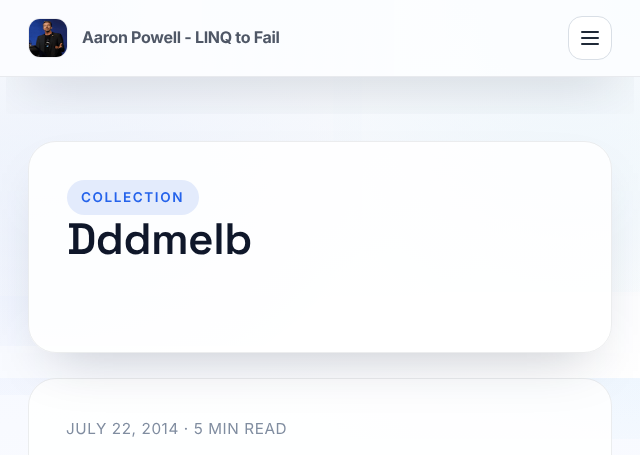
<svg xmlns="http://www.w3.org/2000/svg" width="640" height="455">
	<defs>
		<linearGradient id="g1" gradientUnits="userSpaceOnUse" x1="320" y1="0" x2="320" y2="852"><stop offset="0" stop-color="#F1F5FF" /><stop offset="1" stop-color="#FFFFFF" /></linearGradient>
		<radialGradient id="g2" gradientUnits="userSpaceOnUse" cx="640" cy="0" r="1066"><stop offset="0" stop-color="#0EA5E9" stop-opacity="0.12" /><stop offset="0.5" stop-color="#0EA5E9" stop-opacity="0" /></radialGradient>
		<radialGradient id="g3" gradientUnits="userSpaceOnUse" cx="0" cy="0" r="1066"><stop offset="0" stop-color="#2563EB" stop-opacity="0.12" /><stop offset="0.45" stop-color="#2563EB" stop-opacity="0" /></radialGradient>
		<linearGradient id="g4" gradientUnits="userSpaceOnUse" x1="234" y1="-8" x2="406" y2="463"><stop offset="0" stop-color="#F1F5FF" /><stop offset="1" stop-color="#FFFFFF" /></linearGradient>
		<radialGradient id="g5" gradientUnits="userSpaceOnUse" cx="576" cy="47" r="664"><stop offset="0" stop-color="#0EA5E9" stop-opacity="0.12" /><stop offset="0.45" stop-color="#0EA5E9" stop-opacity="0" /></radialGradient>
		<radialGradient id="g6" gradientUnits="userSpaceOnUse" cx="64" cy="47" r="664"><stop offset="0" stop-color="#2563EB" stop-opacity="0.12" /><stop offset="0.55" stop-color="#2563EB" stop-opacity="0" /></radialGradient>
		<linearGradient id="g7" gradientUnits="userSpaceOnUse" x1="320" y1="77" x2="320" y2="378"><stop offset="0" stop-color="#F8FAFC" stop-opacity="0.82" /><stop offset="1" stop-color="#F8FAFC" stop-opacity="0" /></linearGradient>
		<clipPath id="clip1"><path d="M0 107H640V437H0ZM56 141H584C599.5 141 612 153.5 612 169V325C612 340.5 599.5 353 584 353H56C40.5 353 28 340.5 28 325V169C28 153.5 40.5 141 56 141Z" clip-rule="evenodd" /></clipPath>
		<clipPath id="clip2"><rect x="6" y="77" width="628" height="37" /></clipPath>
	</defs>
	<rect width="100%" height="100%" fill="#FFFFFF" />
	<rect x="0" y="0" width="640" height="455" fill="url(#g1)" />
	<rect x="202" y="0" width="438" height="439" fill="url(#g2)" />
	<rect x="0" y="0" width="394" height="395" fill="url(#g3)" />
	<rect x="0" y="77" width="640" height="301" fill="url(#g4)" />
	<rect x="333" y="77" width="307" height="215" fill="url(#g5)" />
	<rect x="0" y="77" width="362" height="269" fill="url(#g6)" />
	<rect x="0" y="77" width="640" height="219" fill="url(#g7)" />
	<rect x="28" y="378" width="584" height="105" rx="28" fill="#FFFFFF" fill-opacity="0.85" />
	<rect x="28.5" y="378.5" width="583" height="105" rx="27.5" fill="none" stroke="#0F172A" stroke-opacity="0.08" />
	<g clip-path="url(#clip1)">
		<rect x="53" y="191" width="534" height="162" rx="3" fill="#0F172A" fill-opacity="0.25" filter="blur(27.5px)" />
	</g>
	<rect x="28" y="141" width="584" height="212" rx="28" fill="#FFFFFF" fill-opacity="0.85" />
	<rect x="28.5" y="141.5" width="583" height="211" rx="27.5" fill="none" stroke="#0F172A" stroke-opacity="0.08" />
	<g clip-path="url(#clip2)">
		<rect x="25" y="50" width="590" height="27" fill="#0F172A" fill-opacity="0.25" filter="blur(27.5px)" />
	</g>
	<rect x="0" y="0" width="640" height="76" fill="#FFFFFF" fill-opacity="0.88" />
	<rect x="0" y="76" width="640" height="1" fill="#E8EAEE" />
	<rect x="28.5" y="18.5" width="39" height="39" rx="11.5" fill="none" stroke="#EBEBEE" />
	<image x="29" y="19" width="38" height="38" href="assets/img1.png" />
	<text x="82" y="43" font-family="Inter" font-size="16" font-weight="700" letter-spacing="-0.3" fill="#4F5766">Aaron Powell - LINQ to Fail</text>
	<rect x="568.5" y="16.5" width="43" height="43" rx="13.5" fill="#FFFFFF" stroke="#D9DFE6" />
	<rect x="581" y="37" width="18" height="2" rx="1" fill="#1F2937" />
	<rect x="581" y="31" width="18" height="2" rx="1" fill="#1F2937" />
	<rect x="581" y="43" width="18" height="2" rx="1" fill="#1F2937" />
	<rect x="67" y="180" width="132" height="35" rx="17.5" fill="#E3EBFC" />
	<text x="81" y="202" font-family="Inter" font-size="13.5" font-weight="600" letter-spacing="1.6" fill="#2563EB">COLLECTION</text>
	<text x="67" y="254" font-family="Space Grotesk" font-size="44" font-weight="600" letter-spacing="-0.5" fill="#0F172A">Dddmelb</text>
	<text x="66" y="434" font-family="Inter" font-size="15.25" letter-spacing="0.6" fill="#808DA0">JULY 22, 2014 · 5 MIN READ</text>
</svg>
